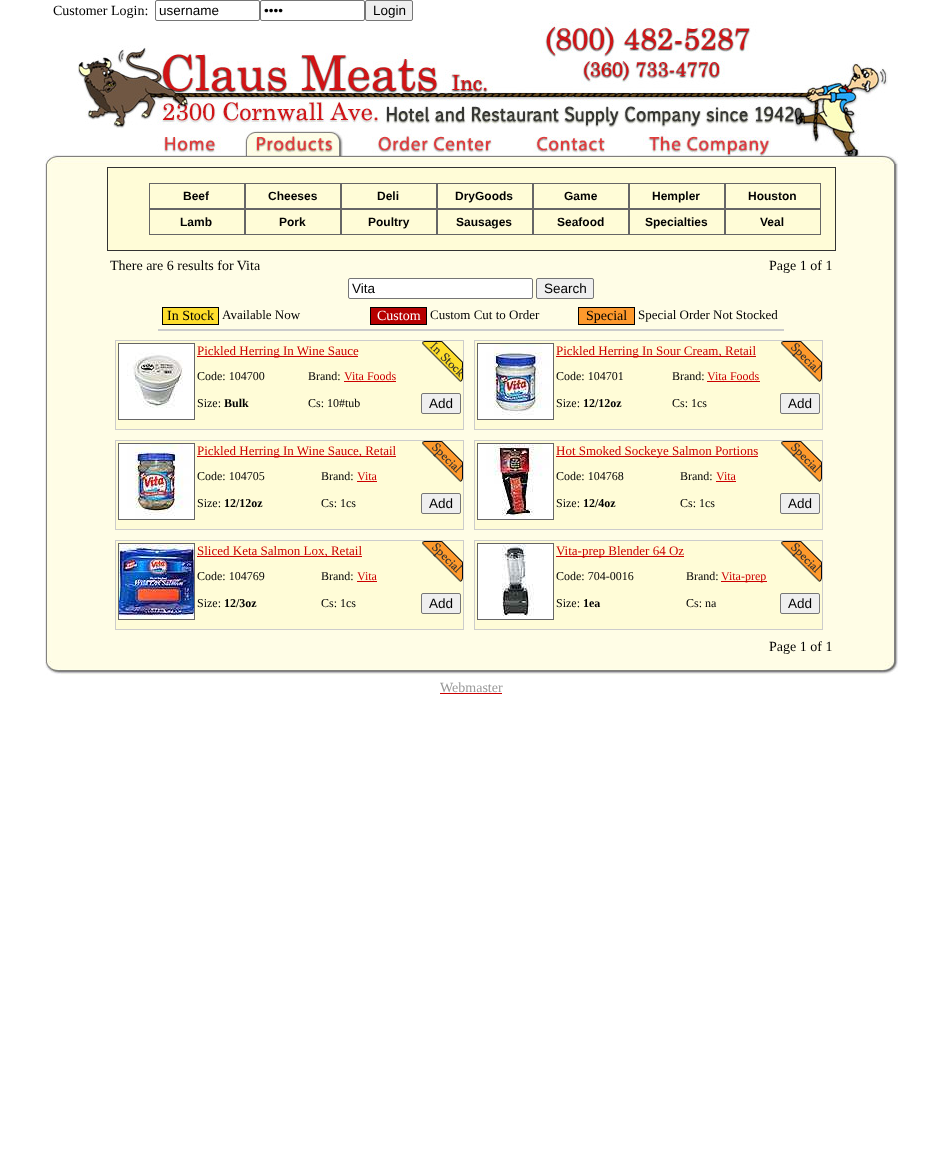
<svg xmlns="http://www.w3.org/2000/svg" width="942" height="1155">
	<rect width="100%" height="100%" fill="#FFFFFF" />
	<text x="53" y="15" font-family="Liberation Serif" font-size="14" fill="#000000">Customer Login:</text>
	<rect x="155.5" y="0.5" width="104" height="20" rx="1.5" fill="none" stroke="#767676" />
	<text x="159" y="15" font-family="Liberation Sans" font-size="13.5" fill="#000000">username</text>
	<rect x="260.5" y="0.5" width="104" height="20" rx="1.5" fill="none" stroke="#767676" />
	<text x="264" y="15" font-family="Liberation Sans" font-size="13.5" fill="#000000">••••</text>
	<rect x="365.5" y="0.5" width="47" height="20" rx="1.5" fill="#EFEFEF" stroke="#767676" />
	<text x="373" y="15" font-family="Liberation Sans" font-size="13.5" fill="#000000">Login</text>
	<image x="77" y="21" width="811" height="108" href="assets/img1.png" />
	<image x="53" y="137" width="183" height="19" href="assets/img2.png" />
	<image x="236" y="129" width="120" height="27" href="assets/img3.png" />
	<image x="356" y="129" width="161" height="27" href="assets/img4.png" />
	<image x="517" y="136" width="110" height="20" href="assets/img5.png" />
	<image x="627" y="129" width="263" height="27" href="assets/img6.png" />
	<image x="45" y="156" width="853" height="8" href="assets/img7.png" />
	<image x="45" y="164" width="853" height="497" href="assets/img8.png" />
	<rect x="108" y="168" width="727" height="82" fill="#FFFCD7" />
	<rect x="107" y="167" width="729" height="1" fill="#333333" />
	<rect x="835" y="167" width="1" height="84" fill="#333333" />
	<rect x="107" y="250" width="729" height="1" fill="#333333" />
	<rect x="107" y="167" width="1" height="84" fill="#333333" />
	<rect x="149" y="183" width="672" height="1" fill="#666666" />
	<rect x="244" y="183" width="1" height="26" fill="#666666" />
	<rect x="149" y="208" width="96" height="2" fill="#666666" />
	<rect x="149" y="183" width="1" height="26" fill="#666666" />
	<text x="183" y="200" font-family="Liberation Sans" font-size="12" font-weight="700" fill="#000000">Beef</text>
	<rect x="340" y="183" width="1" height="26" fill="#666666" />
	<rect x="245" y="208" width="96" height="2" fill="#666666" />
	<rect x="245" y="183" width="1" height="26" fill="#666666" />
	<text x="268" y="200" font-family="Liberation Sans" font-size="12" font-weight="700" fill="#000000">Cheeses</text>
	<rect x="436" y="183" width="1" height="26" fill="#666666" />
	<rect x="341" y="208" width="96" height="2" fill="#666666" />
	<rect x="341" y="183" width="1" height="26" fill="#666666" />
	<text x="377" y="200" font-family="Liberation Sans" font-size="12" font-weight="700" fill="#000000">Deli</text>
	<rect x="532" y="183" width="1" height="26" fill="#666666" />
	<rect x="437" y="208" width="96" height="2" fill="#666666" />
	<rect x="437" y="183" width="1" height="26" fill="#666666" />
	<text x="455" y="200" font-family="Liberation Sans" font-size="12" font-weight="700" fill="#000000">DryGoods</text>
	<rect x="628" y="183" width="1" height="26" fill="#666666" />
	<rect x="533" y="208" width="96" height="2" fill="#666666" />
	<rect x="533" y="183" width="1" height="26" fill="#666666" />
	<text x="564" y="200" font-family="Liberation Sans" font-size="12" font-weight="700" fill="#000000">Game</text>
	<rect x="724" y="183" width="1" height="26" fill="#666666" />
	<rect x="629" y="208" width="96" height="2" fill="#666666" />
	<rect x="629" y="183" width="1" height="26" fill="#666666" />
	<text x="652" y="200" font-family="Liberation Sans" font-size="12" font-weight="700" fill="#000000">Hempler</text>
	<rect x="820" y="183" width="1" height="26" fill="#666666" />
	<rect x="725" y="208" width="96" height="2" fill="#666666" />
	<rect x="725" y="183" width="1" height="26" fill="#666666" />
	<text x="748" y="200" font-family="Liberation Sans" font-size="12" font-weight="700" fill="#000000">Houston</text>
	<rect x="244" y="209" width="1" height="26" fill="#666666" />
	<rect x="149" y="234" width="96" height="1" fill="#666666" />
	<rect x="149" y="209" width="1" height="26" fill="#666666" />
	<text x="180" y="226" font-family="Liberation Sans" font-size="12" font-weight="700" fill="#000000">Lamb</text>
	<rect x="340" y="209" width="1" height="26" fill="#666666" />
	<rect x="245" y="234" width="96" height="1" fill="#666666" />
	<rect x="245" y="209" width="1" height="26" fill="#666666" />
	<text x="279" y="226" font-family="Liberation Sans" font-size="12" font-weight="700" fill="#000000">Pork</text>
	<rect x="436" y="209" width="1" height="26" fill="#666666" />
	<rect x="341" y="234" width="96" height="1" fill="#666666" />
	<rect x="341" y="209" width="1" height="26" fill="#666666" />
	<text x="368" y="226" font-family="Liberation Sans" font-size="12" font-weight="700" fill="#000000">Poultry</text>
	<rect x="532" y="209" width="1" height="26" fill="#666666" />
	<rect x="437" y="234" width="96" height="1" fill="#666666" />
	<rect x="437" y="209" width="1" height="26" fill="#666666" />
	<text x="456" y="226" font-family="Liberation Sans" font-size="12" font-weight="700" fill="#000000">Sausages</text>
	<rect x="628" y="209" width="1" height="26" fill="#666666" />
	<rect x="533" y="234" width="96" height="1" fill="#666666" />
	<rect x="533" y="209" width="1" height="26" fill="#666666" />
	<text x="557" y="226" font-family="Liberation Sans" font-size="12" font-weight="700" fill="#000000">Seafood</text>
	<rect x="724" y="209" width="1" height="26" fill="#666666" />
	<rect x="629" y="234" width="96" height="1" fill="#666666" />
	<rect x="629" y="209" width="1" height="26" fill="#666666" />
	<text x="645" y="226" font-family="Liberation Sans" font-size="12" font-weight="700" fill="#000000">Specialties</text>
	<rect x="820" y="209" width="1" height="26" fill="#666666" />
	<rect x="725" y="234" width="96" height="1" fill="#666666" />
	<rect x="725" y="209" width="1" height="26" fill="#666666" />
	<text x="760" y="226" font-family="Liberation Sans" font-size="12" font-weight="700" fill="#000000">Veal</text>
	<g font-family="Liberation Serif" font-size="14" fill="#000000">
		<text x="110" y="270">There are 6 results for Vita</text>
		<text x="769" y="270">Page 1 of 1</text>
	</g>
	<rect x="348.5" y="278.5" width="184" height="20" rx="1.5" fill="#FFFFFF" stroke="#767676" />
	<text x="352" y="293" font-family="Liberation Sans" font-size="13.5" fill="#000000">Vita</text>
	<rect x="536.5" y="278.5" width="57" height="20" rx="1.5" fill="#EFEFEF" stroke="#767676" />
	<text x="544" y="293" font-family="Liberation Sans" font-size="13.5" fill="#000000">Search</text>
	<rect x="158" y="329" width="626" height="2" fill="#CCCCCC" />
	<rect x="162.5" y="307.5" width="56" height="17" fill="#FEDE2C" stroke="#000000" />
	<text x="167" y="320" font-family="Liberation Serif" font-size="14" fill="#000000">In Stock</text>
	<text x="222" y="319" font-family="Liberation Serif" font-size="13" fill="#000000">Available Now</text>
	<rect x="370.5" y="307.5" width="56" height="17" fill="#B60000" stroke="#000000" />
	<text x="377" y="320" font-family="Liberation Serif" font-size="14" fill="#FFFFFF">Custom</text>
	<text x="430" y="319" font-family="Liberation Serif" font-size="13" fill="#000000">Custom Cut to Order</text>
	<rect x="578.5" y="307.5" width="56" height="17" fill="#FE992C" stroke="#000000" />
	<text x="586" y="320" font-family="Liberation Serif" font-size="14" fill="#000000">Special</text>
	<text x="638" y="319" font-family="Liberation Serif" font-size="13" fill="#000000">Special Order Not Stocked</text>
	<rect x="115.5" y="340.5" width="348" height="89" fill="#FFFCD7" stroke="#CCCCCC" />
	<image x="422" y="341" width="41" height="41" href="assets/img9.png" />
	<rect x="118.5" y="343.5" width="76" height="76" fill="none" stroke="#666666" />
	<image x="119" y="344" width="75" height="75" href="assets/img10.png" />
	<rect x="197" y="356" width="161" height="1" fill="#CC0000" />
	<text x="197" y="355" font-family="Liberation Serif" font-size="13" fill="#CC0000">Pickled Herring In Wine Sauce</text>
	<g font-family="Liberation Serif" font-size="12" fill="#000000">
		<text x="197" y="380">Code: 104700</text>
		<text x="308" y="380">Brand:</text>
	</g>
	<text x="344" y="380" font-family="Liberation Serif" font-size="12" fill="#CC0000">Vita Foods</text>
	<rect x="344" y="381" width="52" height="1" fill="#CC0000" />
	<text x="197" y="407" font-family="Liberation Serif" font-size="12" fill="#000000">Size:</text>
	<text x="224" y="407" font-family="Liberation Serif" font-size="12" font-weight="700" fill="#000000">Bulk</text>
	<text x="308" y="407" font-family="Liberation Serif" font-size="12" fill="#000000">Cs: 10#tub</text>
	<rect x="421.5" y="393.5" width="39" height="20" rx="1.5" fill="#EFEFEF" stroke="#767676" />
	<text x="429" y="408" font-family="Liberation Sans" font-size="13.5" fill="#000000">Add</text>
	<rect x="474.5" y="340.5" width="348" height="89" fill="#FFFCD7" stroke="#CCCCCC" />
	<image x="781" y="341" width="41" height="41" href="assets/img11.png" />
	<rect x="477.5" y="343.5" width="76" height="76" fill="none" stroke="#666666" />
	<image x="478" y="344" width="75" height="75" href="assets/img12.png" />
	<rect x="556" y="356" width="200" height="1" fill="#CC0000" />
	<text x="556" y="355" font-family="Liberation Serif" font-size="13" fill="#CC0000">Pickled Herring In Sour Cream, Retail</text>
	<g font-family="Liberation Serif" font-size="12" fill="#000000">
		<text x="556" y="380">Code: 104701</text>
		<text x="672" y="380">Brand:</text>
	</g>
	<text x="707" y="380" font-family="Liberation Serif" font-size="12" fill="#CC0000">Vita Foods</text>
	<rect x="707" y="381" width="53" height="1" fill="#CC0000" />
	<text x="556" y="407" font-family="Liberation Serif" font-size="12" fill="#000000">Size:</text>
	<text x="583" y="407" font-family="Liberation Serif" font-size="12" font-weight="700" fill="#000000">12/12oz</text>
	<text x="672" y="407" font-family="Liberation Serif" font-size="12" fill="#000000">Cs: 1cs</text>
	<rect x="780.5" y="393.5" width="39" height="20" rx="1.5" fill="#EFEFEF" stroke="#767676" />
	<text x="788" y="408" font-family="Liberation Sans" font-size="13.5" fill="#000000">Add</text>
	<rect x="115.5" y="440.5" width="348" height="89" fill="#FFFCD7" stroke="#CCCCCC" />
	<image x="422" y="441" width="41" height="41" href="assets/img11.png" />
	<rect x="118.5" y="443.5" width="76" height="76" fill="none" stroke="#666666" />
	<image x="119" y="444" width="75" height="75" href="assets/img13.png" />
	<rect x="197" y="456" width="199" height="1" fill="#CC0000" />
	<text x="197" y="455" font-family="Liberation Serif" font-size="13" fill="#CC0000">Pickled Herring In Wine Sauce, Retail</text>
	<g font-family="Liberation Serif" font-size="12" fill="#000000">
		<text x="197" y="480">Code: 104705</text>
		<text x="321" y="480">Brand:</text>
	</g>
	<text x="357" y="480" font-family="Liberation Serif" font-size="12" fill="#CC0000">Vita</text>
	<rect x="357" y="481" width="20" height="1" fill="#CC0000" />
	<text x="197" y="507" font-family="Liberation Serif" font-size="12" fill="#000000">Size:</text>
	<text x="224" y="507" font-family="Liberation Serif" font-size="12" font-weight="700" fill="#000000">12/12oz</text>
	<text x="321" y="507" font-family="Liberation Serif" font-size="12" fill="#000000">Cs: 1cs</text>
	<rect x="421.5" y="493.5" width="39" height="20" rx="1.5" fill="#EFEFEF" stroke="#767676" />
	<text x="429" y="508" font-family="Liberation Sans" font-size="13.5" fill="#000000">Add</text>
	<rect x="474.5" y="440.5" width="348" height="89" fill="#FFFCD7" stroke="#CCCCCC" />
	<image x="781" y="441" width="41" height="41" href="assets/img11.png" />
	<rect x="477.5" y="443.5" width="76" height="76" fill="none" stroke="#666666" />
	<image x="478" y="444" width="75" height="75" href="assets/img14.png" />
	<rect x="556" y="456" width="202" height="1" fill="#CC0000" />
	<text x="556" y="455" font-family="Liberation Serif" font-size="13" fill="#CC0000">Hot Smoked Sockeye Salmon Portions</text>
	<g font-family="Liberation Serif" font-size="12" fill="#000000">
		<text x="556" y="480">Code: 104768</text>
		<text x="680" y="480">Brand:</text>
	</g>
	<text x="716" y="480" font-family="Liberation Serif" font-size="12" fill="#CC0000">Vita</text>
	<rect x="716" y="481" width="20" height="1" fill="#CC0000" />
	<text x="556" y="507" font-family="Liberation Serif" font-size="12" fill="#000000">Size:</text>
	<text x="583" y="507" font-family="Liberation Serif" font-size="12" font-weight="700" fill="#000000">12/4oz</text>
	<text x="680" y="507" font-family="Liberation Serif" font-size="12" fill="#000000">Cs: 1cs</text>
	<rect x="780.5" y="493.5" width="39" height="20" rx="1.5" fill="#EFEFEF" stroke="#767676" />
	<text x="788" y="508" font-family="Liberation Sans" font-size="13.5" fill="#000000">Add</text>
	<rect x="115.5" y="540.5" width="348" height="89" fill="#FFFCD7" stroke="#CCCCCC" />
	<image x="422" y="541" width="41" height="41" href="assets/img11.png" />
	<rect x="118.5" y="543.5" width="76" height="76" fill="none" stroke="#666666" />
	<image x="119" y="544" width="75" height="75" href="assets/img15.png" />
	<rect x="197" y="556" width="165" height="1" fill="#CC0000" />
	<text x="197" y="555" font-family="Liberation Serif" font-size="13" fill="#CC0000">Sliced Keta Salmon Lox, Retail</text>
	<g font-family="Liberation Serif" font-size="12" fill="#000000">
		<text x="197" y="580">Code: 104769</text>
		<text x="321" y="580">Brand:</text>
	</g>
	<text x="357" y="580" font-family="Liberation Serif" font-size="12" fill="#CC0000">Vita</text>
	<rect x="357" y="581" width="20" height="1" fill="#CC0000" />
	<text x="197" y="607" font-family="Liberation Serif" font-size="12" fill="#000000">Size:</text>
	<text x="224" y="607" font-family="Liberation Serif" font-size="12" font-weight="700" fill="#000000">12/3oz</text>
	<text x="321" y="607" font-family="Liberation Serif" font-size="12" fill="#000000">Cs: 1cs</text>
	<rect x="421.5" y="593.5" width="39" height="20" rx="1.5" fill="#EFEFEF" stroke="#767676" />
	<text x="429" y="608" font-family="Liberation Sans" font-size="13.5" fill="#000000">Add</text>
	<rect x="474.5" y="540.5" width="348" height="89" fill="#FFFCD7" stroke="#CCCCCC" />
	<image x="781" y="541" width="41" height="41" href="assets/img11.png" />
	<rect x="477.5" y="543.5" width="76" height="76" fill="none" stroke="#666666" />
	<image x="478" y="544" width="75" height="75" href="assets/img16.png" />
	<rect x="556" y="556" width="128" height="1" fill="#CC0000" />
	<text x="556" y="555" font-family="Liberation Serif" font-size="13" fill="#CC0000">Vita-prep Blender 64 Oz</text>
	<g font-family="Liberation Serif" font-size="12" fill="#000000">
		<text x="556" y="580">Code: 704-0016</text>
		<text x="686" y="580">Brand:</text>
	</g>
	<rect x="721" y="581" width="46" height="1" fill="#CC0000" />
	<text x="721" y="580" font-family="Liberation Serif" font-size="12" fill="#CC0000">Vita-prep</text>
	<text x="556" y="607" font-family="Liberation Serif" font-size="12" fill="#000000">Size:</text>
	<text x="583" y="607" font-family="Liberation Serif" font-size="12" font-weight="700" fill="#000000">1ea</text>
	<text x="686" y="607" font-family="Liberation Serif" font-size="12" fill="#000000">Cs: na</text>
	<rect x="780.5" y="593.5" width="39" height="20" rx="1.5" fill="#EFEFEF" stroke="#767676" />
	<text x="788" y="608" font-family="Liberation Sans" font-size="13.5" fill="#000000">Add</text>
	<text x="769" y="651" font-family="Liberation Serif" font-size="14" fill="#000000">Page 1 of 1</text>
	<image x="45" y="661" width="853" height="14" href="assets/img17.png" />
	<text x="440" y="692" font-family="Liberation Serif" font-size="14" fill="#999999">Webmaster</text>
	<rect x="440" y="693" width="62" height="1" fill="#CC0000" />
</svg>
